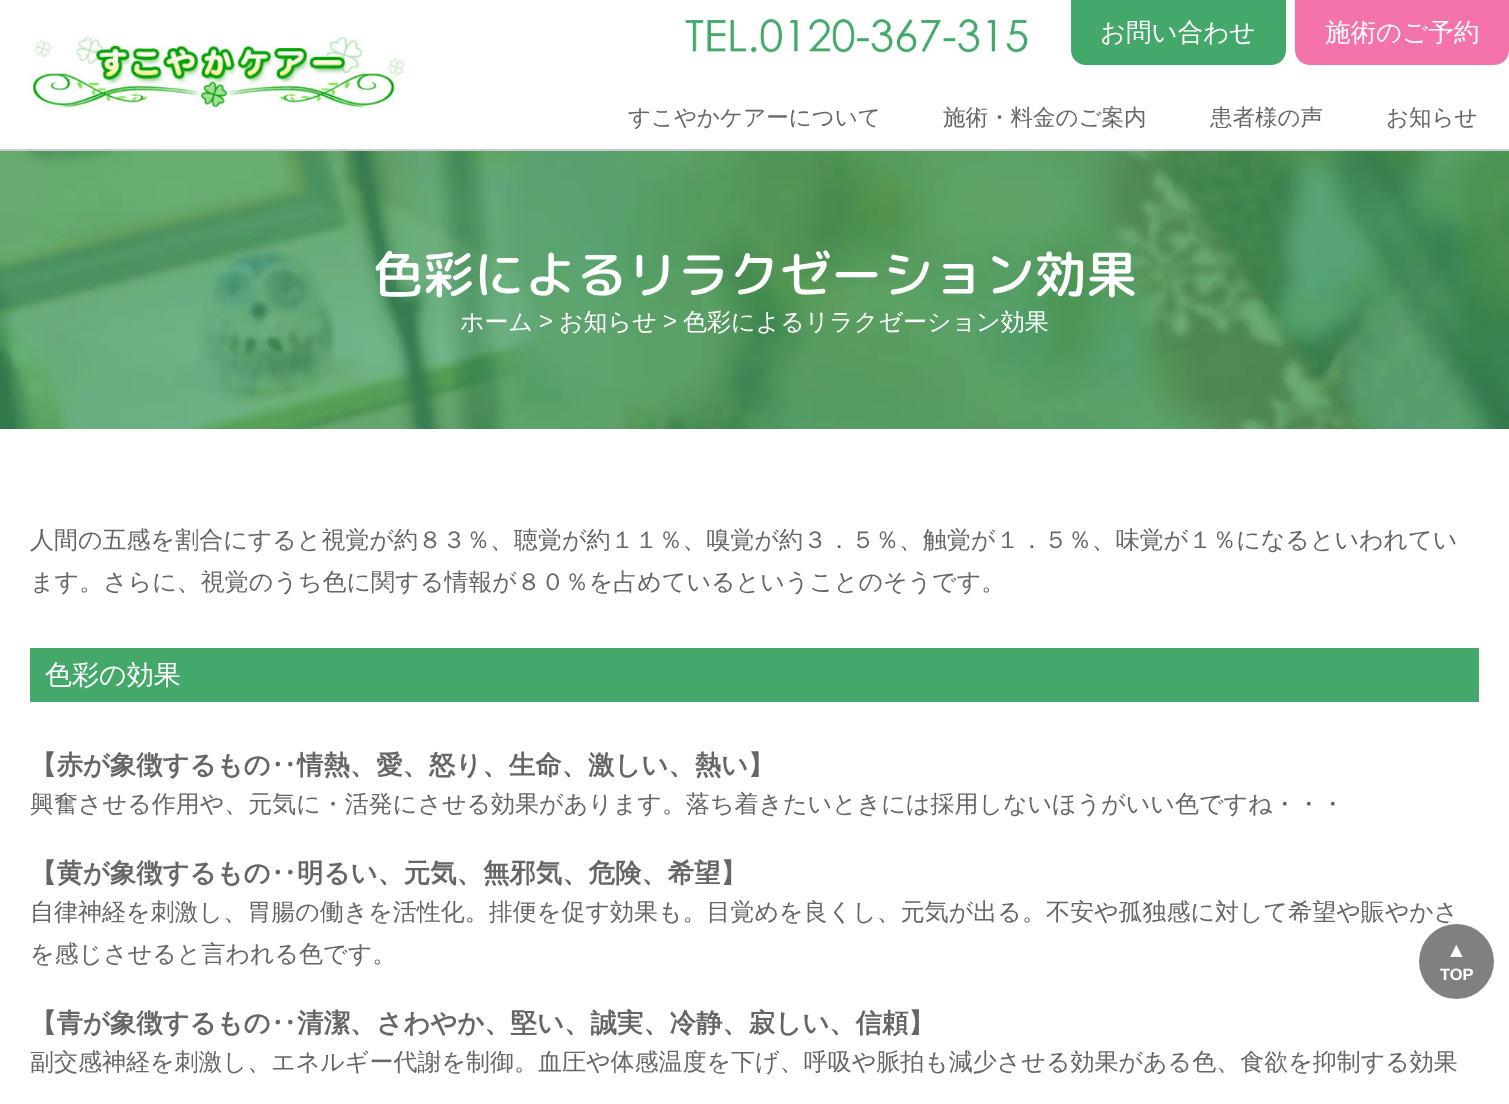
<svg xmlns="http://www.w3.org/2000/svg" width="1509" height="1104">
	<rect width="100%" height="100%" fill="#FFFFFF" />
	<rect x="0" y="149" width="1509" height="2" fill="#CCCCCC" />
	<image x="685" y="19" width="343" height="34" href="assets/img1.png" />
	<path d="M1071 0H1286V50C1286 58.5 1279.5 65 1271 65H1086C1077.5 65 1071 58.5 1071 50Z" fill="#44A86B" />
	<text x="1100" y="41" font-family="WenQuanYi Zen Hei" font-size="25.5" font-weight="500" fill="#FFFFFF">お問い合わせ</text>
	<path d="M1295 0H1509V50C1509 58.5 1502.5 65 1494 65H1310C1301.5 65 1295 58.5 1295 50Z" fill="#F373AA" />
	<text x="1325" y="41" font-family="WenQuanYi Zen Hei" font-size="25.5" font-weight="500" fill="#FFFFFF">施術のご予約</text>
	<image x="30" y="35" width="375" height="74" href="assets/img2.png" />
	<g font-family="WenQuanYi Zen Hei" font-size="22.5" font-weight="500" fill="#666666">
		<text x="628" y="125">すこやかケアーについて</text>
		<text x="943" y="125">施術・料金のご案内</text>
		<text x="1210" y="125">患者様の声</text>
		<text x="1386" y="125">お知らせ</text>
	</g>
	<image x="0" y="151" width="1509" height="278" href="assets/img3.png" />
	<text x="372" y="293" font-family="'Rounded Mplus 1c'" font-size="51" font-weight="500" fill="#FFFFFF">色彩によるリラクゼーション効果</text>
	<text x="460" y="330" font-family="WenQuanYi Zen Hei" font-size="24" font-weight="500" fill="#FFFFFF">ホーム</text>
	<text x="539" y="329" font-family="Liberation Sans" font-size="24" fill="#FFFFFF">&gt;</text>
	<text x="559" y="330" font-family="WenQuanYi Zen Hei" font-size="24" font-weight="500" fill="#FFFFFF">お知らせ</text>
	<text x="663" y="329" font-family="Liberation Sans" font-size="24" fill="#FFFFFF">&gt;</text>
	<text x="683" y="330" font-family="WenQuanYi Zen Hei" font-size="24" font-weight="500" fill="#FFFFFF">色彩によるリラクゼーション効果</text>
	<g font-family="WenQuanYi Zen Hei" font-size="24" font-weight="500" fill="#666666">
		<text x="30" y="548">人間の五感を割合にすると視覚が約８３％、聴覚が約１１％、嗅覚が約３．５％、触覚が１．５％、味覚が１％になるといわれてい</text>
		<text x="30" y="590">ます。さらに、視覚のうち色に関する情報が８０％を占めているということのそうです。</text>
	</g>
	<rect x="30" y="648" width="1449" height="54" fill="#44A86B" />
	<text x="45" y="684" font-family="WenQuanYi Zen Hei" font-size="27" font-weight="500" fill="#FFFFFF">色彩の効果</text>
	<text x="30" y="774" font-family="WenQuanYi Zen Hei" font-size="26.4" font-weight="700" fill="#666666">【赤が象徴するもの‥情熱、愛、怒り、生命、激しい、熱い】</text>
	<text x="30" y="812" font-family="WenQuanYi Zen Hei" font-size="24" font-weight="500" fill="#666666">興奮させる作用や、元気に・活発にさせる効果があります。落ち着きたいときには採用しないほうがいい色ですね・・・</text>
	<text x="30" y="882" font-family="WenQuanYi Zen Hei" font-size="26.4" font-weight="700" fill="#666666">【黄が象徴するもの‥明るい、元気、無邪気、危険、希望】</text>
	<g font-family="WenQuanYi Zen Hei" font-size="24" font-weight="500" fill="#666666">
		<text x="30" y="920">自律神経を刺激し、胃腸の働きを活性化。排便を促す効果も。目覚めを良くし、元気が出る。不安や孤独感に対して希望や賑やかさ</text>
		<text x="30" y="962">を感じさせると言われる色です。</text>
	</g>
	<text x="30" y="1032" font-family="WenQuanYi Zen Hei" font-size="26.4" font-weight="700" fill="#666666">【青が象徴するもの‥清潔、さわやか、堅い、誠実、冷静、寂しい、信頼】</text>
	<text x="30" y="1070" font-family="WenQuanYi Zen Hei" font-size="24" font-weight="500" fill="#666666">副交感神経を刺激し、エネルギー代謝を制御。血圧や体感温度を下げ、呼吸や脈拍も減少させる効果がある色、食欲を抑制する効果</text>
	<circle cx="1456.5" cy="961.5" r="37.5" fill="#808080" />
	<text x="1446" y="957" font-family="Liberation Sans" font-size="21" font-weight="700" fill="#FFFFFF">▲</text>
	<text x="1440" y="980" font-family="Liberation Sans" font-size="16.5" font-weight="700" fill="#FFFFFF">TOP</text>
</svg>
